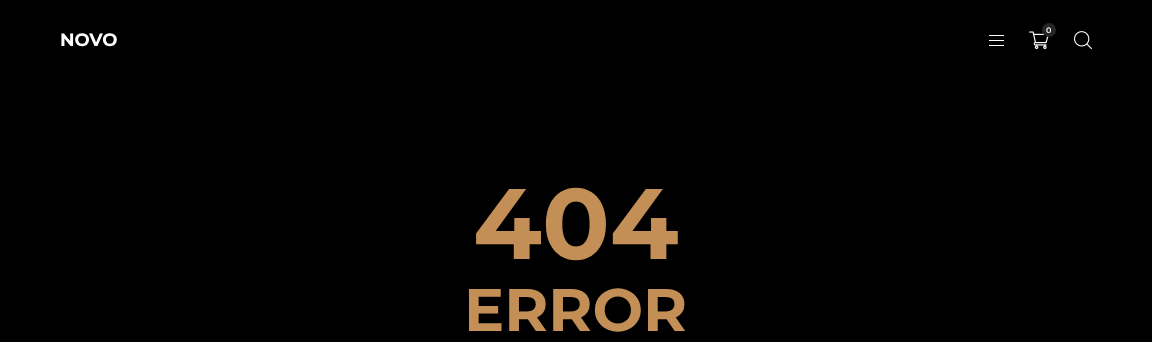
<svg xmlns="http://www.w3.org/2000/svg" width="1152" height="342">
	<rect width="100%" height="100%" fill="#000000" />
	<rect x="989" y="35" width="15" height="1" fill="#FFFFFF" />
	<rect x="989" y="40" width="15" height="1" fill="#FFFFFF" />
	<rect x="989" y="45" width="15" height="1" fill="#FFFFFF" />
	<image x="1029" y="31" width="20" height="18" href="assets/img1.png" />
	<circle cx="1049" cy="30" r="7" fill="#272626" />
	<text x="1046" y="33" font-family="Montserrat" font-size="8" font-weight="600" fill="#FFFFFF">0</text>
	<image x="1074" y="31" width="18" height="19" href="assets/img2.png" />
	<text x="60" y="46" font-family="Montserrat" font-size="18" font-weight="700" fill="#FFFFFF">NOVO</text>
	<text x="473" y="259" font-family="Montserrat" font-size="100" font-weight="700" fill="#C48F56">404</text>
	<text x="464" y="331" font-family="Montserrat" font-size="60" font-weight="700" fill="#C48F56">ERROR</text>
</svg>
